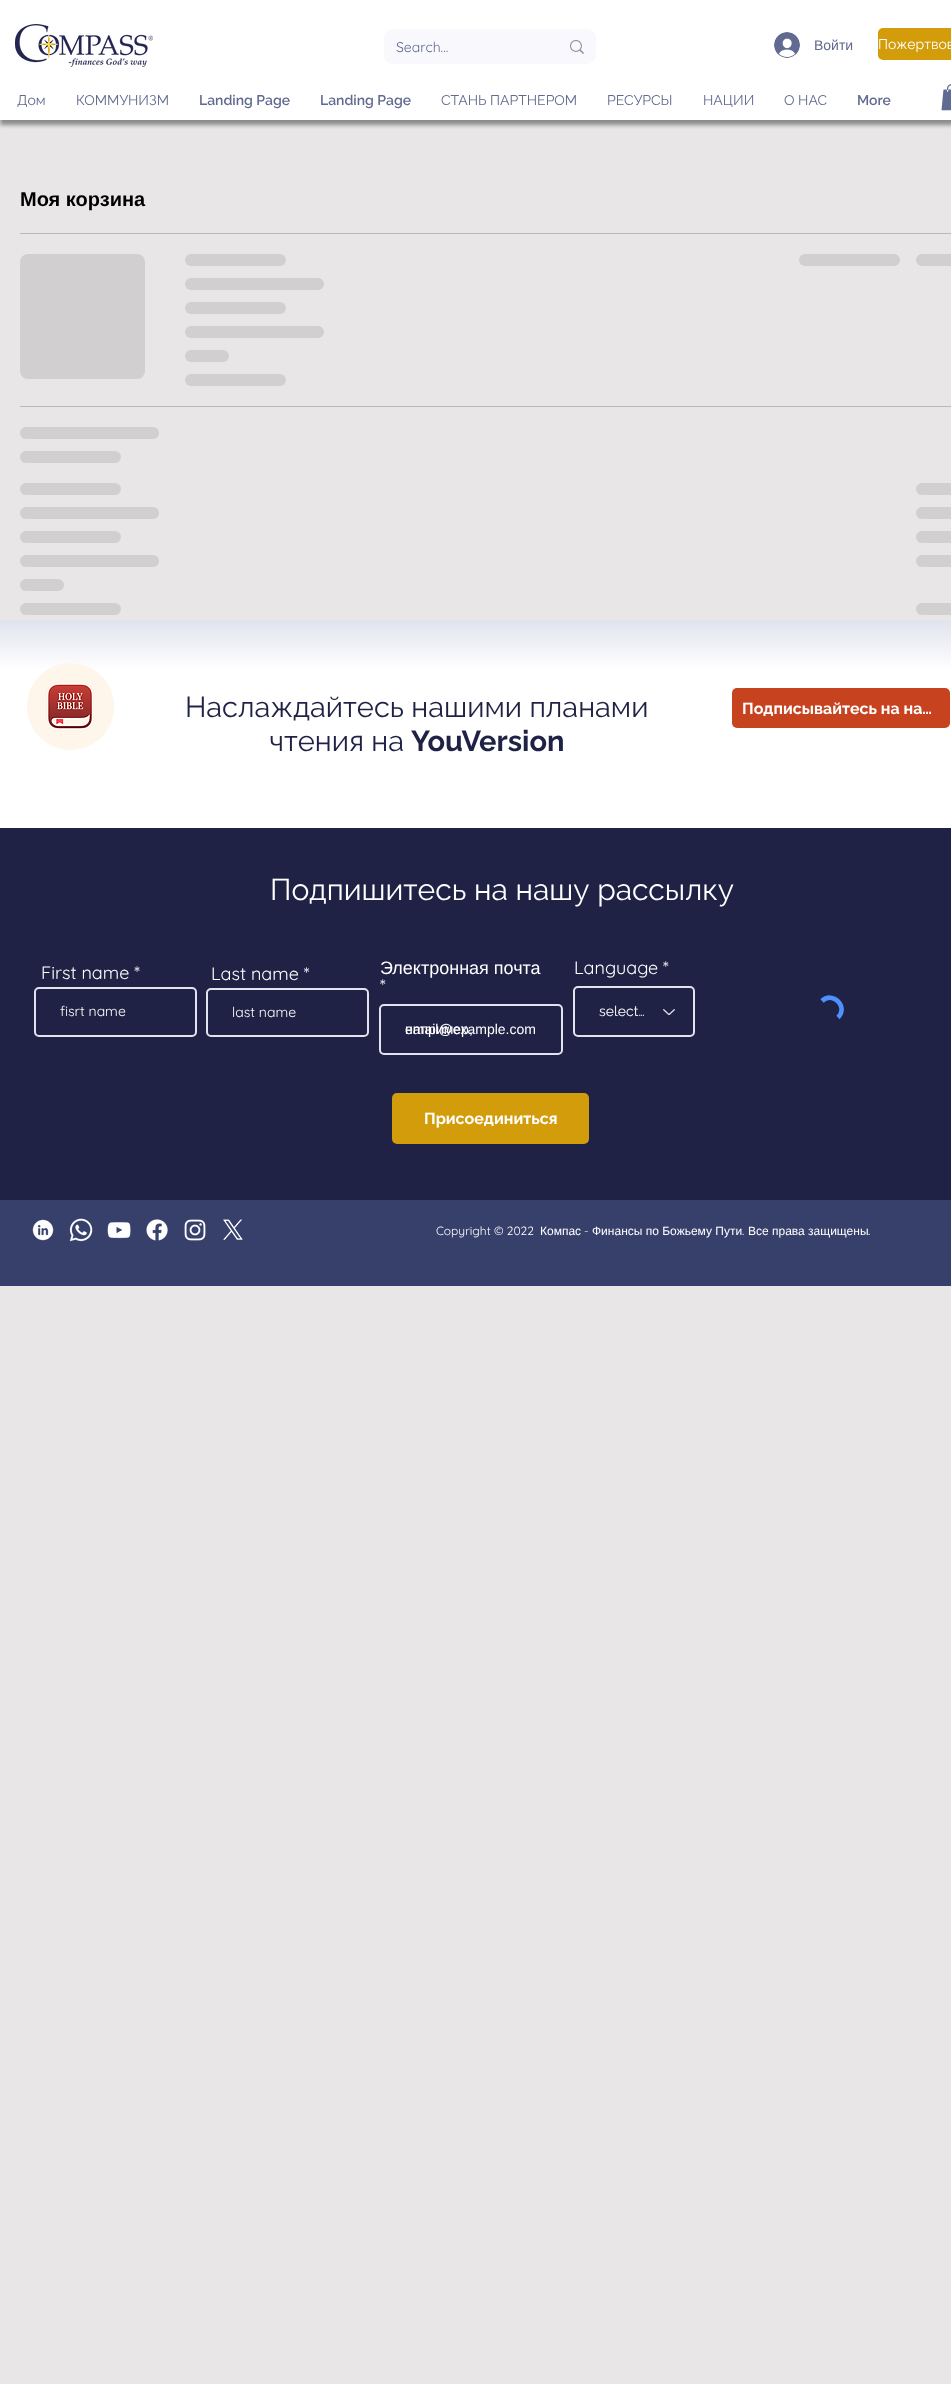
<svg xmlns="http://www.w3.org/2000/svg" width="951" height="2384">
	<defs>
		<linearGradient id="g1" gradientUnits="userSpaceOnUse" x1="20" y1="317" x2="520" y2="317"><stop offset="0.25" stop-color="#D1CFCF" /><stop offset="0.37" stop-color="#BAB8B8" /><stop offset="0.63" stop-color="#D1CFCF" /></linearGradient>
		<linearGradient id="g2" gradientUnits="userSpaceOnUse" x1="185" y1="260" x2="589" y2="260"><stop offset="0.25" stop-color="#D1CFCF" /><stop offset="0.37" stop-color="#BAB8B8" /><stop offset="0.63" stop-color="#D1CFCF" /></linearGradient>
		<linearGradient id="g3" gradientUnits="userSpaceOnUse" x1="185" y1="284" x2="741" y2="284"><stop offset="0.25" stop-color="#D1CFCF" /><stop offset="0.37" stop-color="#BAB8B8" /><stop offset="0.63" stop-color="#D1CFCF" /></linearGradient>
		<linearGradient id="g4" gradientUnits="userSpaceOnUse" x1="185" y1="308" x2="589" y2="308"><stop offset="0.25" stop-color="#D1CFCF" /><stop offset="0.37" stop-color="#BAB8B8" /><stop offset="0.63" stop-color="#D1CFCF" /></linearGradient>
		<linearGradient id="g5" gradientUnits="userSpaceOnUse" x1="185" y1="332" x2="741" y2="332"><stop offset="0.25" stop-color="#D1CFCF" /><stop offset="0.37" stop-color="#BAB8B8" /><stop offset="0.63" stop-color="#D1CFCF" /></linearGradient>
		<linearGradient id="g6" gradientUnits="userSpaceOnUse" x1="185" y1="356" x2="361" y2="356"><stop offset="0.25" stop-color="#D1CFCF" /><stop offset="0.37" stop-color="#BAB8B8" /><stop offset="0.63" stop-color="#D1CFCF" /></linearGradient>
		<linearGradient id="g7" gradientUnits="userSpaceOnUse" x1="185" y1="380" x2="589" y2="380"><stop offset="0.25" stop-color="#D1CFCF" /><stop offset="0.37" stop-color="#BAB8B8" /><stop offset="0.63" stop-color="#D1CFCF" /></linearGradient>
		<linearGradient id="g8" gradientUnits="userSpaceOnUse" x1="799" y1="260" x2="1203" y2="260"><stop offset="0.25" stop-color="#D1CFCF" /><stop offset="0.37" stop-color="#BAB8B8" /><stop offset="0.63" stop-color="#D1CFCF" /></linearGradient>
		<linearGradient id="g9" gradientUnits="userSpaceOnUse" x1="916" y1="260" x2="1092" y2="260"><stop offset="0.25" stop-color="#D1CFCF" /><stop offset="0.37" stop-color="#BAB8B8" /><stop offset="0.63" stop-color="#D1CFCF" /></linearGradient>
		<linearGradient id="g10" gradientUnits="userSpaceOnUse" x1="20" y1="433" x2="576" y2="433"><stop offset="0.25" stop-color="#D1CFCF" /><stop offset="0.37" stop-color="#BAB8B8" /><stop offset="0.63" stop-color="#D1CFCF" /></linearGradient>
		<linearGradient id="g11" gradientUnits="userSpaceOnUse" x1="20" y1="457" x2="424" y2="457"><stop offset="0.25" stop-color="#D1CFCF" /><stop offset="0.37" stop-color="#BAB8B8" /><stop offset="0.63" stop-color="#D1CFCF" /></linearGradient>
		<linearGradient id="g12" gradientUnits="userSpaceOnUse" x1="20" y1="489" x2="424" y2="489"><stop offset="0.25" stop-color="#D1CFCF" /><stop offset="0.37" stop-color="#BAB8B8" /><stop offset="0.63" stop-color="#D1CFCF" /></linearGradient>
		<linearGradient id="g13" gradientUnits="userSpaceOnUse" x1="916" y1="489" x2="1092" y2="489"><stop offset="0.25" stop-color="#D1CFCF" /><stop offset="0.37" stop-color="#BAB8B8" /><stop offset="0.63" stop-color="#D1CFCF" /></linearGradient>
		<linearGradient id="g14" gradientUnits="userSpaceOnUse" x1="20" y1="513" x2="576" y2="513"><stop offset="0.25" stop-color="#D1CFCF" /><stop offset="0.37" stop-color="#BAB8B8" /><stop offset="0.63" stop-color="#D1CFCF" /></linearGradient>
		<linearGradient id="g15" gradientUnits="userSpaceOnUse" x1="916" y1="513" x2="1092" y2="513"><stop offset="0.25" stop-color="#D1CFCF" /><stop offset="0.37" stop-color="#BAB8B8" /><stop offset="0.63" stop-color="#D1CFCF" /></linearGradient>
		<linearGradient id="g16" gradientUnits="userSpaceOnUse" x1="20" y1="537" x2="424" y2="537"><stop offset="0.25" stop-color="#D1CFCF" /><stop offset="0.37" stop-color="#BAB8B8" /><stop offset="0.63" stop-color="#D1CFCF" /></linearGradient>
		<linearGradient id="g17" gradientUnits="userSpaceOnUse" x1="916" y1="537" x2="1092" y2="537"><stop offset="0.25" stop-color="#D1CFCF" /><stop offset="0.37" stop-color="#BAB8B8" /><stop offset="0.63" stop-color="#D1CFCF" /></linearGradient>
		<linearGradient id="g18" gradientUnits="userSpaceOnUse" x1="20" y1="561" x2="576" y2="561"><stop offset="0.25" stop-color="#D1CFCF" /><stop offset="0.37" stop-color="#BAB8B8" /><stop offset="0.63" stop-color="#D1CFCF" /></linearGradient>
		<linearGradient id="g19" gradientUnits="userSpaceOnUse" x1="916" y1="561" x2="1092" y2="561"><stop offset="0.25" stop-color="#D1CFCF" /><stop offset="0.37" stop-color="#BAB8B8" /><stop offset="0.63" stop-color="#D1CFCF" /></linearGradient>
		<linearGradient id="g20" gradientUnits="userSpaceOnUse" x1="20" y1="585" x2="196" y2="585"><stop offset="0.25" stop-color="#D1CFCF" /><stop offset="0.37" stop-color="#BAB8B8" /><stop offset="0.63" stop-color="#D1CFCF" /></linearGradient>
		<linearGradient id="g21" gradientUnits="userSpaceOnUse" x1="20" y1="609" x2="424" y2="609"><stop offset="0.25" stop-color="#D1CFCF" /><stop offset="0.37" stop-color="#BAB8B8" /><stop offset="0.63" stop-color="#D1CFCF" /></linearGradient>
		<linearGradient id="g22" gradientUnits="userSpaceOnUse" x1="916" y1="609" x2="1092" y2="609"><stop offset="0.25" stop-color="#D1CFCF" /><stop offset="0.37" stop-color="#BAB8B8" /><stop offset="0.63" stop-color="#D1CFCF" /></linearGradient>
		<linearGradient id="g23" gradientUnits="userSpaceOnUse" x1="490" y1="620" x2="490" y2="828"><stop offset="0" stop-color="#E1E3ED" /><stop offset="0.24" stop-color="#FFFFFF" /></linearGradient>
	</defs>
	<rect width="100%" height="100%" fill="#E8E6E6" />
	<rect x="0" y="5" width="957" height="120" fill="#000000" fill-opacity="0.4" filter="blur(2px)" />
	<rect x="0" y="0" width="951" height="120" fill="#FFFFFF" />
	<image x="15" y="24" width="138" height="43" href="assets/img1.png" />
	<rect x="384" y="29" width="212" height="35" rx="9" fill="#F9F9FD" />
	<text x="396" y="52" font-family="Quicksand" font-size="14" fill="#616A90">Search...</text>
	<image x="570" y="40" width="14" height="14" href="assets/img2.png" />
	<image x="774" y="32" width="26" height="26" href="assets/img3.png" />
	<text x="814" y="50" font-family="Liberation Sans" font-size="14" fill="#616A90">Войти</text>
	<rect x="878" y="28" width="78" height="32" rx="5" fill="#D39C0A" />
	<text x="878" y="49" font-family="Raleway" font-size="14" fill="#FFFFFF">Пожертвов</text>
	<g font-family="Raleway" font-size="14" fill="#616A90">
		<text x="17" y="105">Дом</text>
		<text x="76" y="105">КОММУНИЗМ</text>
	</g>
	<g font-family="Raleway" font-size="14" font-weight="600" fill="#616A90">
		<text x="199" y="105">Landing Page</text>
		<text x="320" y="105">Landing Page</text>
	</g>
	<g font-family="Raleway" font-size="14" fill="#616A90">
		<text x="441" y="105">СТАНЬ ПАРТНЕРОМ</text>
		<text x="607" y="105">РЕСУРСЫ</text>
		<text x="703" y="105">НАЦИИ</text>
		<text x="784" y="105">О НАС</text>
	</g>
	<text x="857" y="105" font-family="Raleway" font-size="14" font-weight="600" fill="#616A90">More</text>
	<image x="941" y="84" width="10" height="27" href="assets/img4.png" />
	<rect x="20" y="233" width="931" height="1" fill="#BAB8B8" />
	<text x="20" y="206" font-family="Liberation Sans" font-size="20" font-weight="700" fill="#000000">Моя корзина</text>
	<rect x="20" y="254" width="125" height="125" rx="8" fill="url(#g1)" />
	<rect x="185" y="254" width="101" height="12" rx="6" fill="url(#g2)" />
	<rect x="185" y="278" width="139" height="12" rx="6" fill="url(#g3)" />
	<rect x="185" y="302" width="101" height="12" rx="6" fill="url(#g4)" />
	<rect x="185" y="326" width="139" height="12" rx="6" fill="url(#g5)" />
	<rect x="185" y="350" width="44" height="12" rx="6" fill="url(#g6)" />
	<rect x="185" y="374" width="101" height="12" rx="6" fill="url(#g7)" />
	<rect x="799" y="254" width="101" height="12" rx="6" fill="url(#g8)" />
	<rect x="916" y="254" width="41" height="12" rx="6" fill="url(#g9)" />
	<rect x="20" y="406" width="931" height="1" fill="#BAB8B8" />
	<rect x="20" y="427" width="139" height="12" rx="6" fill="url(#g10)" />
	<rect x="20" y="451" width="101" height="12" rx="6" fill="url(#g11)" />
	<rect x="20" y="483" width="101" height="12" rx="6" fill="url(#g12)" />
	<rect x="916" y="483" width="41" height="12" rx="6" fill="url(#g13)" />
	<rect x="20" y="507" width="139" height="12" rx="6" fill="url(#g14)" />
	<rect x="916" y="507" width="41" height="12" rx="6" fill="url(#g15)" />
	<rect x="20" y="531" width="101" height="12" rx="6" fill="url(#g16)" />
	<rect x="916" y="531" width="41" height="12" rx="6" fill="url(#g17)" />
	<rect x="20" y="555" width="139" height="12" rx="6" fill="url(#g18)" />
	<rect x="916" y="555" width="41" height="12" rx="6" fill="url(#g19)" />
	<rect x="20" y="579" width="44" height="12" rx="6" fill="url(#g20)" />
	<rect x="20" y="603" width="101" height="12" rx="6" fill="url(#g21)" />
	<rect x="916" y="603" width="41" height="12" rx="6" fill="url(#g22)" />
	<rect x="0" y="620" width="951" height="208" fill="url(#g23)" />
	<image x="27" y="663" width="87" height="87" href="assets/img5.png" />
	<g font-family="Raleway" font-size="29" fill="#1F2245">
		<text x="185" y="717">Наслаждайтесь нашими планами</text>
		<text x="269" y="751">чтения на</text>
	</g>
	<text x="411" y="751" font-family="Raleway" font-size="29" font-weight="700" fill="#1F2245">YouVersion</text>
	<rect x="732" y="688" width="218" height="40" rx="5" fill="#C74320" />
	<text x="742" y="714" font-family="Raleway" font-size="16" font-weight="700" fill="#FFFFFF">Подписывайтесь на на…</text>
	<rect x="0" y="828" width="951" height="372" fill="#1F2245" />
	<text x="270" y="900" font-family="Raleway" font-size="30" fill="#FFFFFF">Подпишитесь на нашу рассылку</text>
	<text x="41" y="979" font-family="Quicksand" font-size="18" fill="#FFFFFF">First name *</text>
	<rect x="35" y="988" width="161" height="48" rx="4" fill="none" stroke="#E1E3ED" stroke-width="2" />
	<text x="60" y="1016" font-family="Quicksand" font-size="14" fill="#FFFFFF">fisrt name</text>
	<text x="211" y="980" font-family="Quicksand" font-size="18" fill="#FFFFFF">Last name *</text>
	<rect x="207" y="989" width="161" height="47" rx="4" fill="none" stroke="#E1E3ED" stroke-width="2" />
	<text x="232" y="1017" font-family="Quicksand" font-size="14" fill="#FFFFFF">last name</text>
	<text x="380" y="974" font-family="Liberation Sans" font-size="18" fill="#FFFFFF">Электронная почта</text>
	<text x="380" y="992" font-family="Quicksand" font-size="18" fill="#FFFFFF">*</text>
	<rect x="380" y="1005" width="182" height="49" rx="4" fill="none" stroke="#E1E3ED" stroke-width="2" />
	<g font-family="Liberation Sans" font-size="14" fill="#FFFFFF">
		<text x="405" y="1034">например,</text>
		<text x="405" y="1034">email@example.com</text>
	</g>
	<text x="574" y="974" font-family="Quicksand" font-size="18" fill="#FFFFFF">Language *</text>
	<rect x="574" y="987" width="120" height="49" rx="4" fill="none" stroke="#E1E3ED" stroke-width="2" />
	<text x="599" y="1016" font-family="Raleway" font-size="14" fill="#FFFFFF">select…</text>
	<image x="663" y="1009" width="12" height="6" href="assets/img6.png" />
	<path d="M822 1001C832.5 990.5 849 1007 838 1017.5" fill="none" stroke="#4D90FE" stroke-width="4.6" />
	<rect x="392" y="1093" width="197" height="51" rx="5" fill="#D39C0A" />
	<text x="424" y="1124" font-family="Raleway" font-size="16" font-weight="700" fill="#FFFFFF">Присоединиться</text>
	<rect x="0" y="1200" width="951" height="86" fill="#37406B" />
	<image x="32" y="1219" width="22" height="22" href="assets/img7.png" />
	<image x="69" y="1218" width="24" height="24" href="assets/img8.png" />
	<image x="107" y="1222" width="24" height="17" href="assets/img9.png" />
	<image x="146" y="1219" width="22" height="22" href="assets/img10.png" />
	<image x="184" y="1219" width="22" height="22" href="assets/img11.png" />
	<image x="223" y="1219" width="20" height="21" href="assets/img12.png" />
	<text x="436" y="1235" font-family="Quicksand" font-size="12" fill="#FFFFFF">Copyright © 2022</text>
	<text x="540" y="1235" font-family="Liberation Sans" font-size="12" fill="#FFFFFF">Компас</text>
	<text x="584" y="1235" font-family="Quicksand" font-size="12" fill="#FFFFFF">-</text>
	<g font-family="Liberation Sans" font-size="12" fill="#FFFFFF">
		<text x="592" y="1235">Финансы по Божьему Пути</text>
		<text x="748" y="1235">Все права защищены</text>
	</g>
	<g font-family="Quicksand" font-size="12" fill="#FFFFFF">
		<text x="742" y="1235">.</text>
		<text x="868" y="1235">.</text>
	</g>
</svg>
